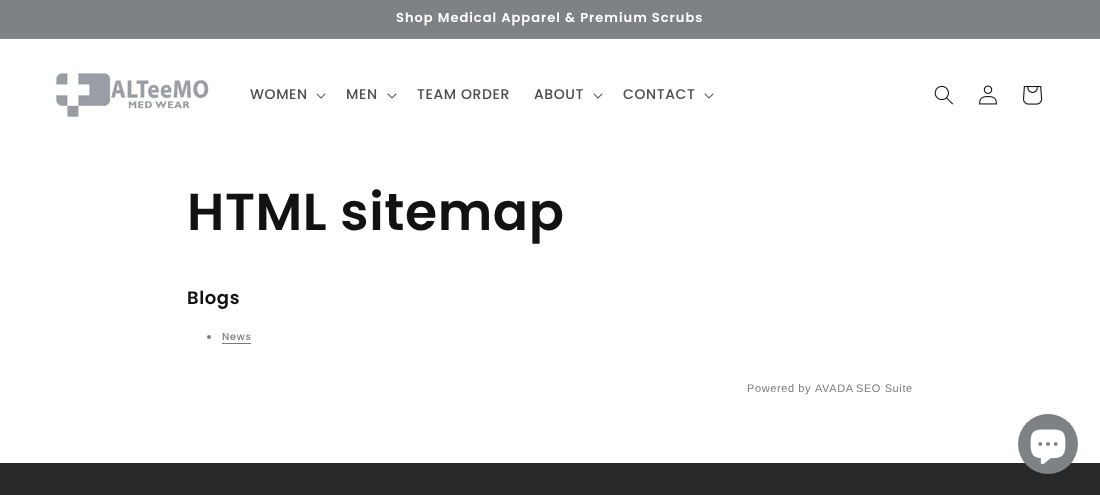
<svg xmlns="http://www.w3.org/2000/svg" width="1100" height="495">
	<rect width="100%" height="100%" fill="#FFFFFF" />
	<rect x="0" y="0" width="1100" height="38" fill="#7E8285" />
	<rect x="0" y="38" width="1100" height="1" fill="#888C8F" />
	<text x="396" y="22" font-family="Poppins" font-size="13" font-weight="600" letter-spacing="1" fill="#FFFFFF">Shop Medical Apparel &amp; Premium Scrubs</text>
	<image x="56" y="73" width="153" height="44" href="assets/img1.png" />
	<text x="250" y="99" font-family="Poppins" font-size="14" font-weight="500" letter-spacing="0.6" fill="#4D4D4D">WOMEN</text>
	<image x="316" y="93" width="10" height="6" href="assets/img2.png" />
	<text x="346" y="99" font-family="Poppins" font-size="14" font-weight="500" letter-spacing="0.6" fill="#4D4D4D">MEN</text>
	<image x="387" y="93" width="10" height="6" href="assets/img2.png" />
	<g font-family="Poppins" font-size="14" font-weight="500" letter-spacing="0.6" fill="#4D4D4D">
		<text x="417" y="99">TEAM ORDER</text>
		<text x="534" y="99">ABOUT</text>
	</g>
	<image x="593" y="93" width="10" height="6" href="assets/img2.png" />
	<text x="623" y="99" font-family="Poppins" font-size="14" font-weight="500" letter-spacing="0.6" fill="#4D4D4D">CONTACT</text>
	<image x="704" y="93" width="10" height="6" href="assets/img2.png" />
	<image x="934" y="85" width="19" height="20" href="assets/img3.png" />
	<image x="979" y="85" width="18" height="20" href="assets/img4.png" />
	<image x="1023" y="86" width="20" height="19" href="assets/img5.png" />
	<text x="187" y="230" font-family="Poppins" font-size="52" font-weight="600" letter-spacing="0.6" fill="#121212">HTML sitemap</text>
	<text x="187" y="304" font-family="Poppins" font-size="18" font-weight="600" letter-spacing="0.6" fill="#121212">Blogs</text>
	<circle cx="209" cy="337" r="2" fill="#7C7C7C" />
	<text x="222" y="340" font-family="Poppins" font-size="10" font-weight="500" letter-spacing="0.6" fill="#7C7C7C">News</text>
	<rect x="222" y="343" width="29" height="1" fill="#7C7C7C" />
	<g font-family="Liberation Sans" font-size="11" letter-spacing="0.6" fill="#7C7C7C">
		<text x="747" y="392">Powered by</text>
		<text x="815" y="392">AVADA</text>
		<text x="856" y="392">SEO Suite</text>
	</g>
	<rect x="0" y="463" width="1100" height="32" fill="#282828" />
	<circle cx="1048" cy="444" r="30" fill="#7E8285" />
	<image x="1030" y="429" width="36" height="36" href="assets/img6.png" />
</svg>
